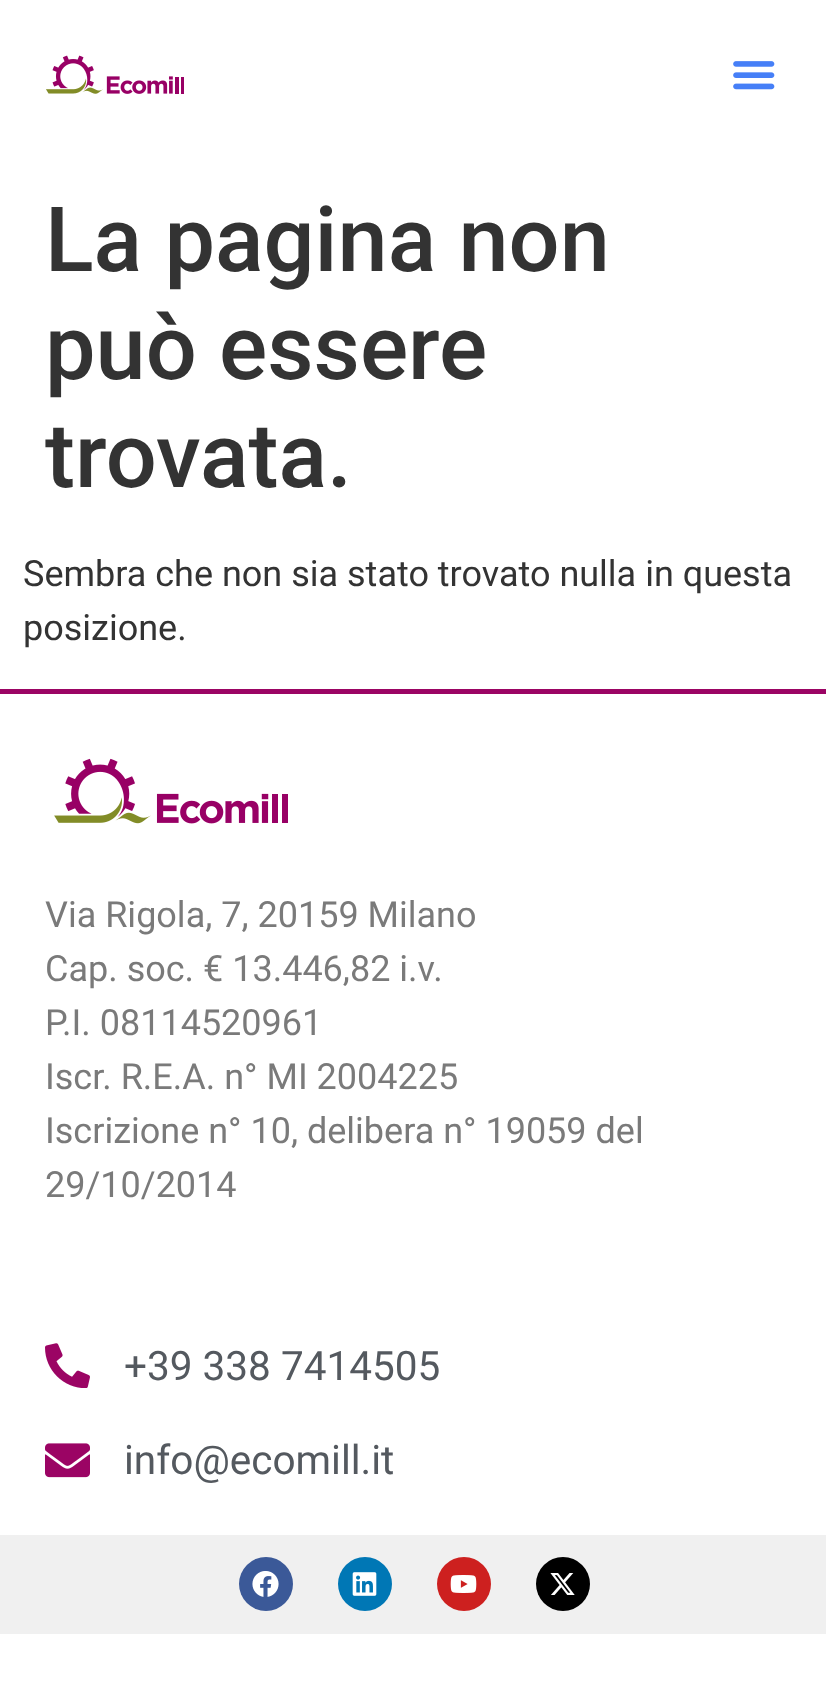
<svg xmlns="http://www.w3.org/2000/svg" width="826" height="1690">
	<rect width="100%" height="100%" fill="#FFFFFF" />
	<image x="46" y="55" width="138" height="39" href="assets/img1.png" />
	<image x="733" y="61" width="42" height="29" href="assets/img2.png" />
	<g font-family="Roboto" font-size="90" font-weight="500" fill="#333333">
		<text x="45" y="271">La pagina non</text>
		<text x="45" y="379">può essere</text>
		<text x="45" y="487">trovata.</text>
	</g>
	<g font-family="Roboto" font-size="36" fill="#333333">
		<text x="23" y="586">Sembra che non sia stato trovato nulla in questa</text>
		<text x="23" y="640">posizione.</text>
	</g>
	<rect x="0" y="689" width="826" height="5" fill="#9B0464" />
	<image x="54" y="758" width="234" height="66" href="assets/img3.png" />
	<g font-family="Roboto" font-size="36" fill="#7A7A7A">
		<text x="45" y="927">Via Rigola, 7, 20159 Milano</text>
		<text x="45" y="981">Cap. soc. € 13.446,82 i.v.</text>
		<text x="45" y="1035">P.I. 08114520961</text>
		<text x="45" y="1089">Iscr. R.E.A. n° MI 2004225</text>
		<text x="45" y="1143">Iscrizione n° 10, delibera n° 19059 del</text>
		<text x="45" y="1197">29/10/2014</text>
	</g>
	<image x="45" y="1343" width="45" height="45" href="assets/img4.png" />
	<text x="124" y="1380" font-family="Roboto" font-size="40.5" fill="#54595F">+39 338 7414505</text>
	<image x="45" y="1443" width="45" height="35" href="assets/img5.png" />
	<text x="124" y="1474" font-family="Roboto" font-size="40.5" fill="#54595F">info@ecomill.it</text>
	<rect x="0" y="1535" width="826" height="99" fill="#F0F0F0" />
	<circle cx="266" cy="1584" r="27" fill="#3B5998" />
	<image x="252" y="1571" width="27" height="26" href="assets/img6.png" />
	<circle cx="365" cy="1584" r="27" fill="#0077B5" />
	<image x="352" y="1572" width="25" height="24" href="assets/img7.png" />
	<circle cx="464" cy="1584" r="27" fill="#CD201F" />
	<image x="450" y="1575" width="27" height="18" href="assets/img8.png" />
	<circle cx="563" cy="1584" r="27" fill="#000000" />
	<image x="550" y="1573" width="25" height="22" href="assets/img9.png" />
</svg>
